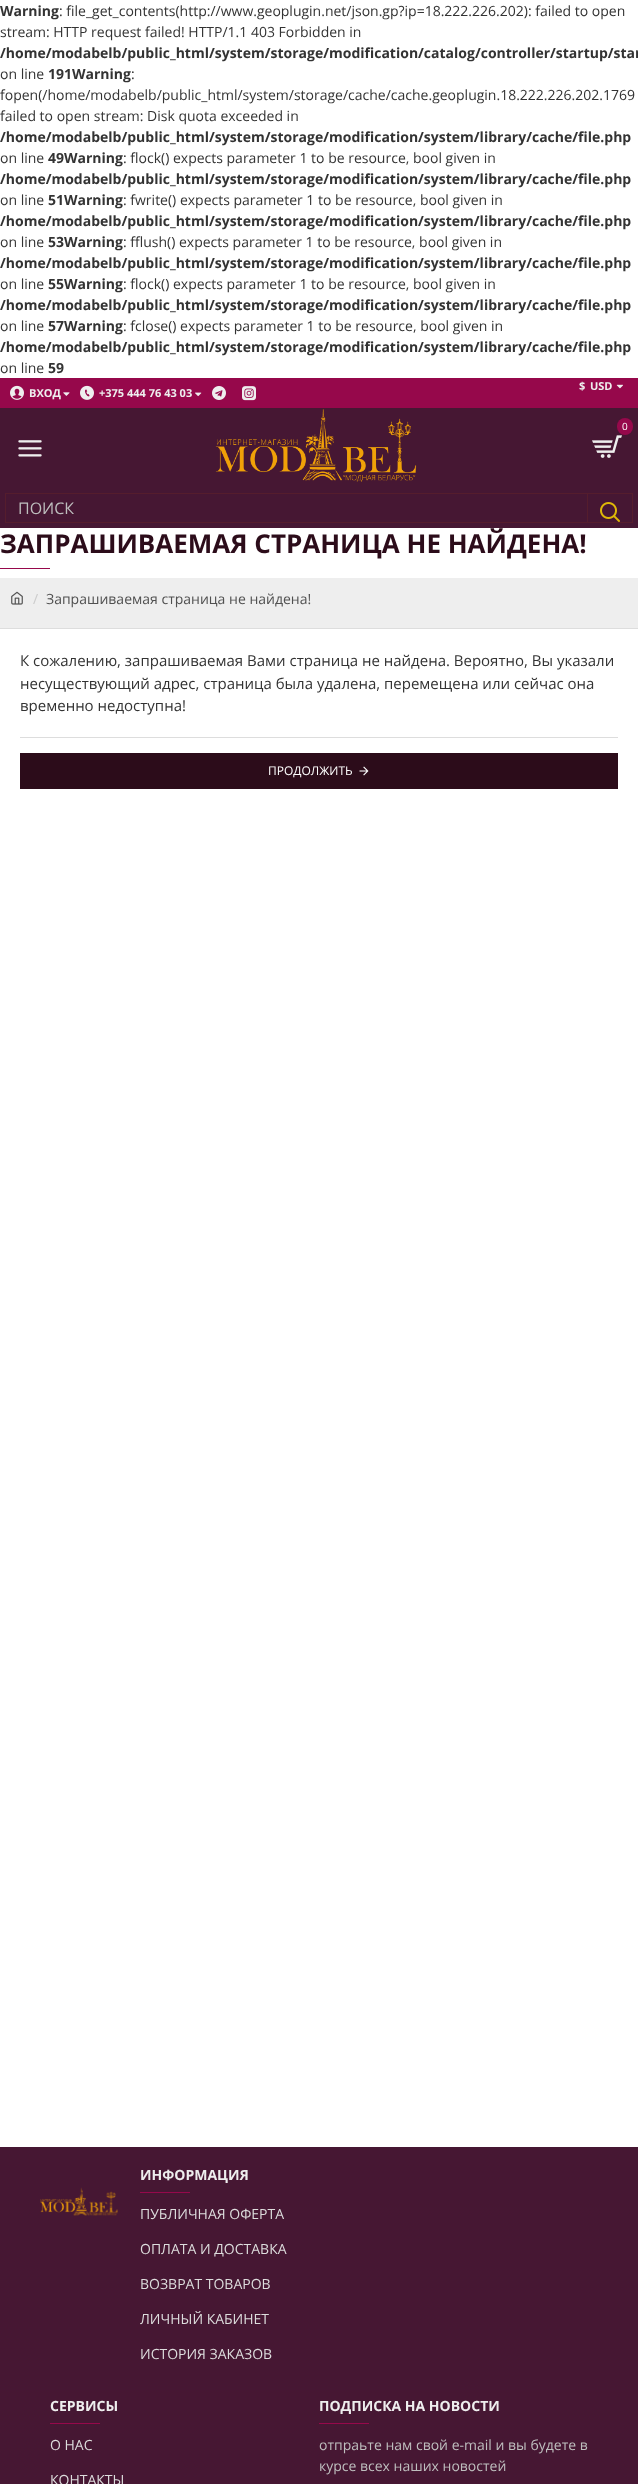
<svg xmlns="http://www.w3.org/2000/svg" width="638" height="2484">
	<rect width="100%" height="100%" fill="#FFFFFF" />
	<text x="0" y="16" font-family="Open Sans" font-size="14" font-weight="700" fill="#333333">Warning</text>
	<g font-family="Open Sans" font-size="14" fill="#333333">
		<text x="59" y="16">: file_get_contents(http://www.geoplugin.net/json.gp?ip=18.222.226.202): failed to open</text>
		<text x="0" y="37">stream: HTTP request failed! HTTP/1.1 403 Forbidden in</text>
	</g>
	<text x="0" y="58" font-family="Open Sans" font-size="14" font-weight="700" fill="#333333">/home/modabelb/public_html/system/storage/modification/catalog/controller/startup/star</text>
	<text x="0" y="79" font-family="Open Sans" font-size="14" fill="#333333">on line</text>
	<text x="48" y="79" font-family="Open Sans" font-size="14" font-weight="700" fill="#333333">191Warning</text>
	<g font-family="Open Sans" font-size="14" fill="#333333">
		<text x="131" y="79">:</text>
		<text x="0" y="100">fopen(/home/modabelb/public_html/system/storage/cache/cache.geoplugin.18.222.226.202.1769</text>
		<text x="0" y="121">failed to open stream: Disk quota exceeded in</text>
	</g>
	<text x="0" y="142" font-family="Open Sans" font-size="14" font-weight="700" fill="#333333">/home/modabelb/public_html/system/storage/modification/system/library/cache/file.php</text>
	<text x="0" y="163" font-family="Open Sans" font-size="14" fill="#333333">on line</text>
	<text x="48" y="163" font-family="Open Sans" font-size="14" font-weight="700" fill="#333333">49Warning</text>
	<text x="123" y="163" font-family="Open Sans" font-size="14" fill="#333333">: flock() expects parameter 1 to be resource, bool given in</text>
	<text x="0" y="184" font-family="Open Sans" font-size="14" font-weight="700" fill="#333333">/home/modabelb/public_html/system/storage/modification/system/library/cache/file.php</text>
	<text x="0" y="205" font-family="Open Sans" font-size="14" fill="#333333">on line</text>
	<text x="48" y="205" font-family="Open Sans" font-size="14" font-weight="700" fill="#333333">51Warning</text>
	<text x="123" y="205" font-family="Open Sans" font-size="14" fill="#333333">: fwrite() expects parameter 1 to be resource, bool given in</text>
	<text x="0" y="226" font-family="Open Sans" font-size="14" font-weight="700" fill="#333333">/home/modabelb/public_html/system/storage/modification/system/library/cache/file.php</text>
	<text x="0" y="247" font-family="Open Sans" font-size="14" fill="#333333">on line</text>
	<text x="48" y="247" font-family="Open Sans" font-size="14" font-weight="700" fill="#333333">53Warning</text>
	<text x="123" y="247" font-family="Open Sans" font-size="14" fill="#333333">: fflush() expects parameter 1 to be resource, bool given in</text>
	<text x="0" y="268" font-family="Open Sans" font-size="14" font-weight="700" fill="#333333">/home/modabelb/public_html/system/storage/modification/system/library/cache/file.php</text>
	<text x="0" y="289" font-family="Open Sans" font-size="14" fill="#333333">on line</text>
	<text x="48" y="289" font-family="Open Sans" font-size="14" font-weight="700" fill="#333333">55Warning</text>
	<text x="123" y="289" font-family="Open Sans" font-size="14" fill="#333333">: flock() expects parameter 1 to be resource, bool given in</text>
	<text x="0" y="310" font-family="Open Sans" font-size="14" font-weight="700" fill="#333333">/home/modabelb/public_html/system/storage/modification/system/library/cache/file.php</text>
	<text x="0" y="331" font-family="Open Sans" font-size="14" fill="#333333">on line</text>
	<text x="48" y="331" font-family="Open Sans" font-size="14" font-weight="700" fill="#333333">57Warning</text>
	<text x="123" y="331" font-family="Open Sans" font-size="14" fill="#333333">: fclose() expects parameter 1 to be resource, bool given in</text>
	<text x="0" y="352" font-family="Open Sans" font-size="14" font-weight="700" fill="#333333">/home/modabelb/public_html/system/storage/modification/system/library/cache/file.php</text>
	<text x="0" y="373" font-family="Open Sans" font-size="14" fill="#333333">on line</text>
	<text x="48" y="373" font-family="Open Sans" font-size="14" font-weight="700" fill="#333333">59</text>
	<rect x="0" y="378" width="638" height="30" fill="#96084B" />
	<g font-family="Open Sans" font-size="11" font-weight="700" fill="#EEEEEE">
		<text x="579" y="390">$</text>
		<text x="590" y="390">USD</text>
	</g>
	<image x="616" y="384" width="7" height="5" href="assets/img1.png" />
	<image x="10" y="385" width="14" height="15" href="assets/img2.png" />
	<text x="29" y="397" font-family="Open Sans" font-size="11" font-weight="700" fill="#EEEEEE">ВХОД</text>
	<image x="63" y="392" width="7" height="4" href="assets/img3.png" />
	<image x="80" y="385" width="14" height="15" href="assets/img4.png" />
	<text x="99" y="397" font-family="Open Sans" font-size="11" font-weight="700" fill="#EEEEEE">+375 444 76 43 03</text>
	<image x="195" y="392" width="7" height="5" href="assets/img5.png" />
	<image x="212" y="386" width="14" height="14" href="assets/img6.png" />
	<image x="242" y="386" width="14" height="15" href="assets/img7.png" />
	<rect x="0" y="408" width="638" height="120" fill="#461733" />
	<image x="215" y="409" width="202" height="73" href="assets/img8.png" />
	<rect x="617" y="418" width="16" height="17" rx="8" fill="#96084B" />
	<text x="622" y="430" font-family="Open Sans" font-size="10" fill="#FFFFFF">0</text>
	<image x="592" y="435" width="30" height="23" href="assets/img9.png" />
	<image x="18" y="440" width="24" height="17" href="assets/img10.png" />
	<rect x="5.5" y="493.5" width="627" height="29" fill="none" stroke="#551D2D" />
	<text x="18" y="514" font-family="Open Sans" font-size="16" fill="#BEBEBE">ПОИСК</text>
	<rect x="587" y="494" width="1" height="28" fill="#551D2D" />
	<image x="600" y="502" width="20" height="20" href="assets/img11.png" />
	<text x="0" y="553" font-family="Open Sans" font-size="26" font-weight="700" fill="#2C0C1A">ЗАПРАШИВАЕМАЯ СТРАНИЦА НЕ НАЙДЕНА!</text>
	<rect x="0" y="568" width="50" height="1" fill="#96084B" />
	<rect x="0" y="578" width="638" height="50" fill="#EEEEEE" />
	<rect x="0" y="628" width="638" height="1" fill="#DDDDDD" />
	<image x="11" y="591" width="12" height="14" href="assets/img12.png" />
	<text x="33" y="604" font-family="Open Sans" font-size="14" fill="#CCCCCC">/</text>
	<text x="46" y="604" font-family="Open Sans" font-size="14" fill="#505050">Запрашиваемая страница не найдена!</text>
	<g font-family="Open Sans" font-size="15" fill="#333333">
		<text x="20" y="666">К сожалению, запрашиваемая Вами страница не найдена. Вероятно, Вы указали</text>
		<text x="20" y="689">несуществующий адрес, страница была удалена, перемещена или сейчас она</text>
		<text x="20" y="711">временно недоступна!</text>
	</g>
	<rect x="20" y="737" width="598" height="1" fill="#DDDDDD" />
	<rect x="20" y="753" width="598" height="36" fill="#2C0C1A" />
	<text x="268" y="775" font-family="Open Sans" font-size="12" fill="#FFFFFF">ПРОДОЛЖИТЬ</text>
	<image x="359" y="766" width="10" height="10" href="assets/img13.png" />
	<rect x="0" y="2147" width="638" height="337" fill="#461733" />
	<image x="40" y="2187" width="78" height="29" href="assets/img14.png" />
	<text x="140" y="2180" font-family="Open Sans" font-size="14" font-weight="700" fill="#EEEEEE">ИНФОРМАЦИЯ</text>
	<rect x="140" y="2192" width="50" height="1" fill="#96084B" />
	<g font-family="Open Sans" font-size="14" fill="#DDDDDD">
		<text x="140" y="2219">ПУБЛИЧНАЯ ОФЕРТА</text>
		<text x="140" y="2254">ОПЛАТА И ДОСТАВКА</text>
		<text x="140" y="2289">ВОЗВРАТ ТОВАРОВ</text>
		<text x="140" y="2324">ЛИЧНЫЙ КАБИНЕТ</text>
		<text x="140" y="2359">ИСТОРИЯ ЗАКАЗОВ</text>
	</g>
	<text x="50" y="2411" font-family="Open Sans" font-size="14" font-weight="700" fill="#EEEEEE">СЕРВИСЫ</text>
	<rect x="50" y="2423" width="50" height="1" fill="#96084B" />
	<g font-family="Open Sans" font-size="14" fill="#DDDDDD">
		<text x="50" y="2450">О НАС</text>
		<text x="50" y="2485">КОНТАКТЫ</text>
	</g>
	<text x="319" y="2411" font-family="Open Sans" font-size="14" font-weight="700" fill="#EEEEEE">ПОДПИСКА НА НОВОСТИ</text>
	<rect x="319" y="2423" width="50" height="1" fill="#96084B" />
	<g font-family="Open Sans" font-size="14" fill="#BEBEBE">
		<text x="319" y="2450">отпраьте нам свой e-mail и вы будете в</text>
		<text x="319" y="2471">курсе всех наших новостей</text>
	</g>
</svg>
